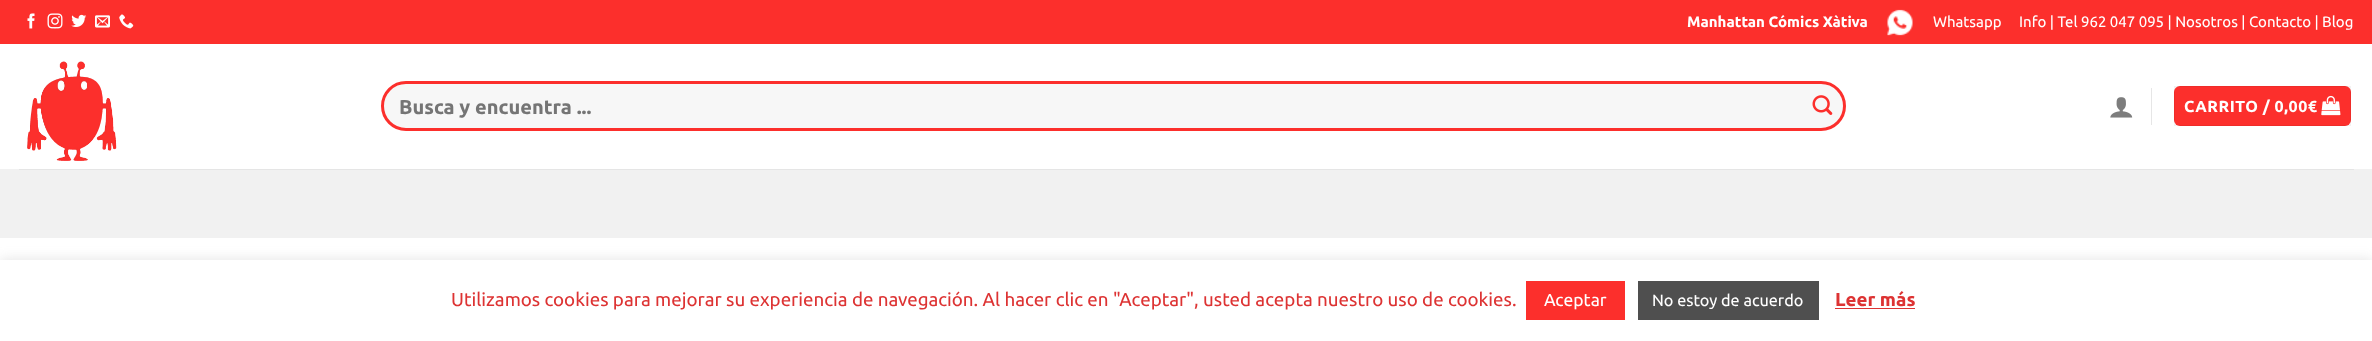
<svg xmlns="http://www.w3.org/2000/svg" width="2372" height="341">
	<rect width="100%" height="100%" fill="#FFFFFF" />
	<rect x="0" y="0" width="2372" height="44" fill="#FC2F2C" />
	<image x="27" y="13" width="8" height="16" href="assets/img1.png" />
	<image x="47" y="13" width="16" height="16" href="assets/img2.png" />
	<image x="71" y="14" width="16" height="13" href="assets/img3.png" />
	<image x="95" y="15" width="15" height="13" href="assets/img4.png" />
	<image x="119" y="14" width="15" height="15" href="assets/img5.png" />
	<text x="1687" y="27" font-family="Ubuntu" font-size="15" font-weight="700" fill="#FFFFFF">Manhattan Cómics Xàtiva</text>
	<image x="1887" y="9" width="26" height="27" href="assets/img6.png" />
	<g font-family="Ubuntu" font-size="15" fill="#FFFFFF">
		<text x="1933" y="27">Whatsapp</text>
		<text x="2019" y="27">Info | Tel 962 047 095 | Nosotros | Contacto | Blog</text>
	</g>
	<image x="27" y="61" width="90" height="100" href="assets/img7.png" />
	<rect x="382.5" y="82.5" width="1462" height="47" rx="23.5" fill="#F7F7F7" stroke="#FC2F2C" stroke-width="3" />
	<text x="399" y="114" font-family="Ubuntu" font-size="20" font-weight="700" fill="#757575">Busca y encuentra ...</text>
	<image x="1812" y="95" width="21" height="20" href="assets/img8.png" />
	<image x="2110" y="97" width="23" height="21" href="assets/img9.png" />
	<rect x="2151" y="88" width="1" height="37" fill="#E6E6E6" />
	<rect x="2174" y="86" width="177" height="40" rx="6" fill="#FC2F2C" />
	<rect x="2174.5" y="86.5" width="176" height="39" fill="none" stroke="#000000" stroke-opacity="0.05" />
	<text x="2184" y="112" font-family="Ubuntu" font-size="16" font-weight="700" letter-spacing="0.5" fill="#FFFFFF">CARRITO / 0,00€</text>
	<image x="2321" y="95" width="20" height="21" href="assets/img10.png" />
	<rect x="0" y="169" width="2372" height="69" fill="#F1F1F1" />
	<rect x="19" y="169" width="2335" height="1" fill="#E5E5E5" />
	<rect x="0" y="259" width="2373" height="81" fill="#ACABAB" fill-opacity="0.3" filter="blur(6px)" />
	<rect x="0" y="260" width="2372" height="81" fill="#FFFFFF" />
	<text x="451" y="306" font-family="Ubuntu" font-size="18.75" fill="#DD3333">Utilizamos cookies para mejorar su experiencia de navegación. Al hacer clic en "Aceptar", usted acepta nuestro uso de cookies.</text>
	<rect x="1526" y="281" width="99" height="39" fill="#FC2F2C" />
	<text x="1544" y="306" font-family="Ubuntu" font-size="17.5" fill="#FFFFFF">Aceptar</text>
	<rect x="1638" y="281" width="181" height="39" fill="#4F4F4F" />
	<text x="1652" y="306" font-family="Ubuntu" font-size="16.25" fill="#FFFFFF">No estoy de acuerdo</text>
	<text x="1835" y="306" font-family="Ubuntu" font-size="18.75" font-weight="700" fill="#DD3333">Leer más</text>
	<rect x="1835" y="308" width="80" height="1" fill="#DD3333" />
</svg>
